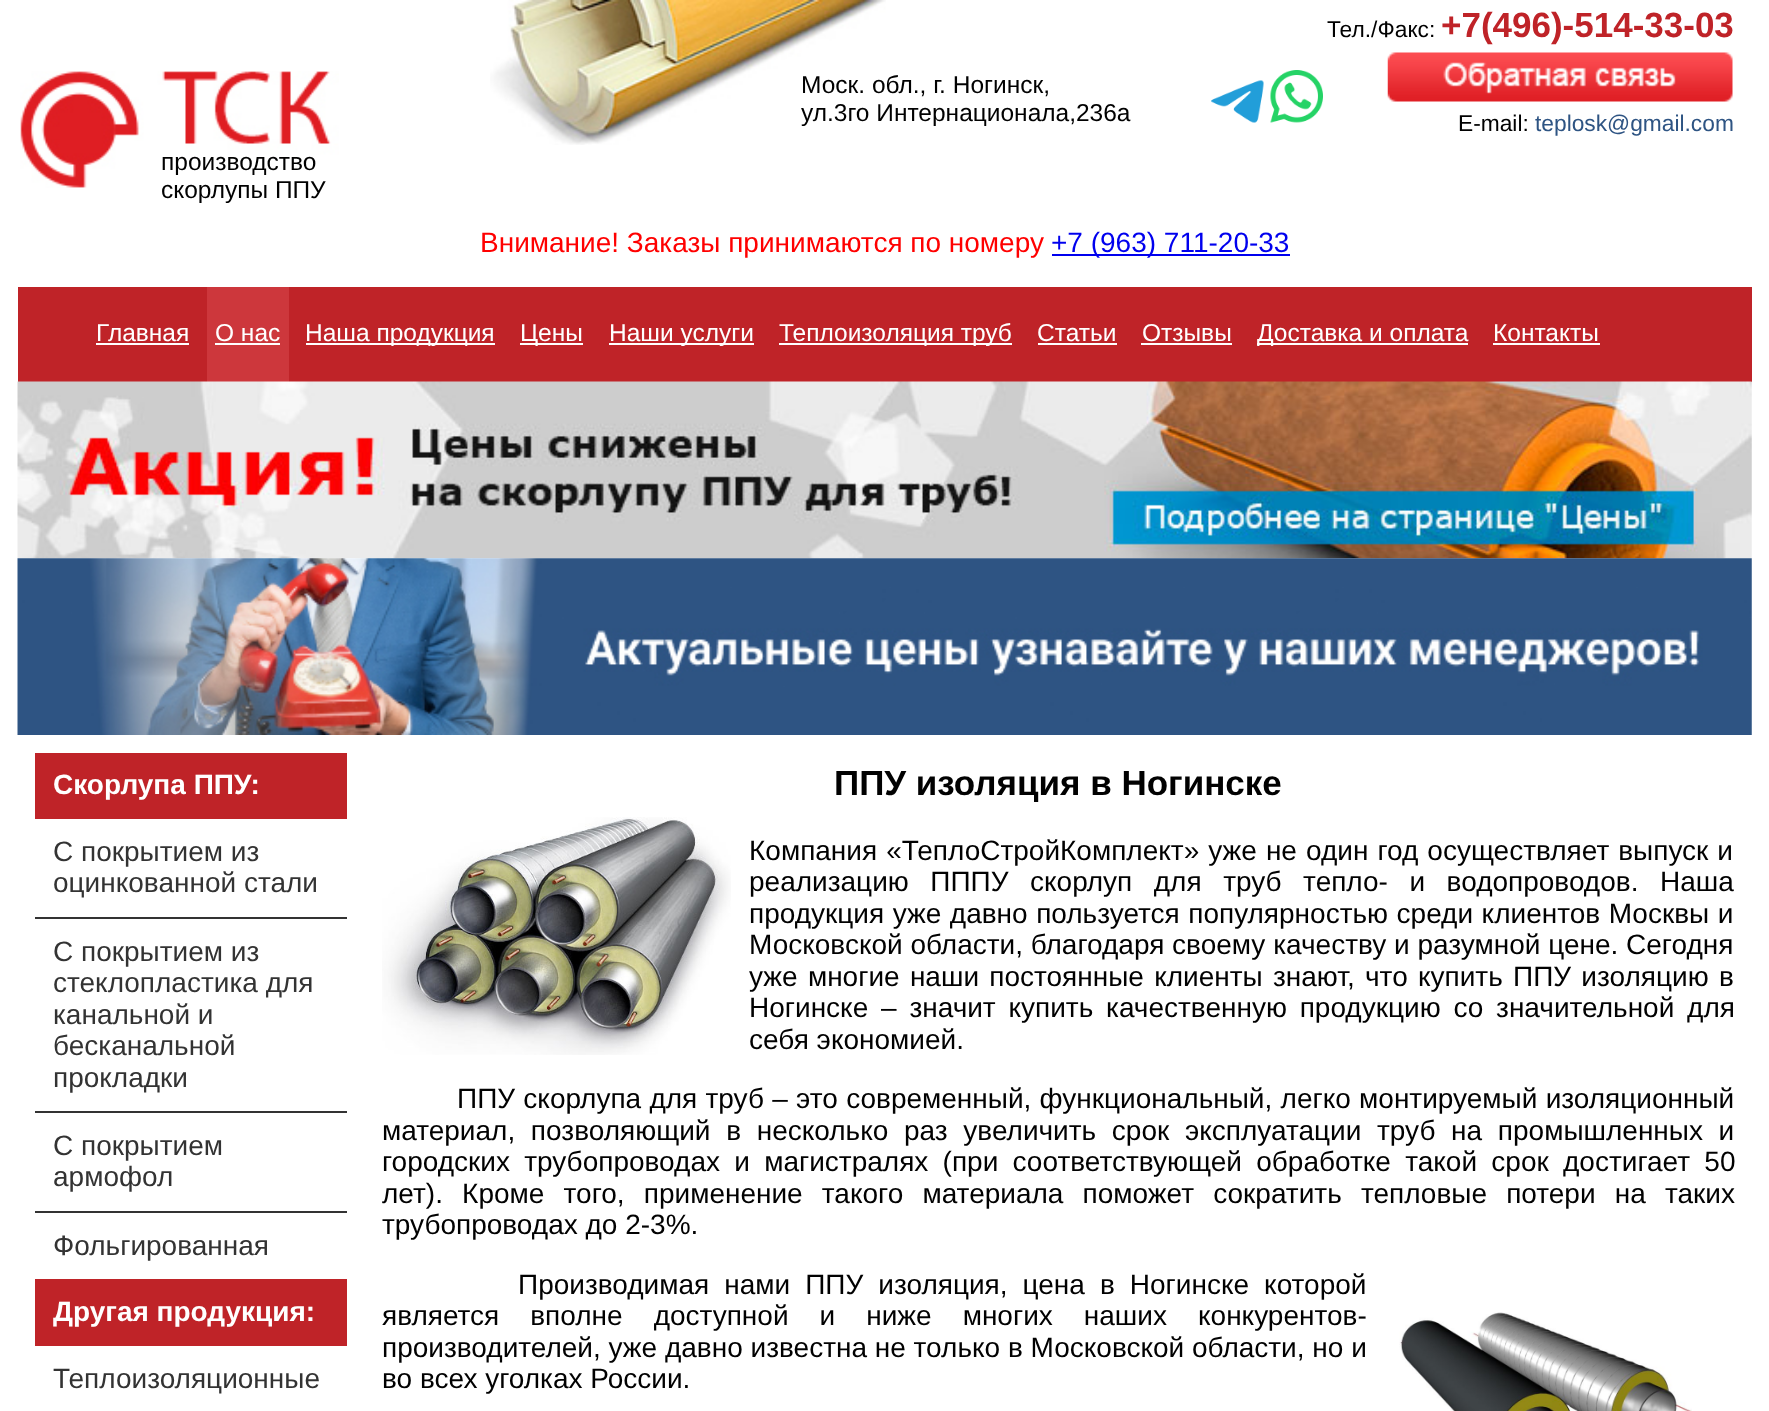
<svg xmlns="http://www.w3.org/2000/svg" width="1769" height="1411">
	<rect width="100%" height="100%" fill="#FFFFFF" />
	<image x="490" y="0" width="396" height="145" href="assets/img1.png" />
	<g font-family="Liberation Sans" font-size="24.5" fill="#010101">
		<text x="801" y="93">Моск. обл., г. Ногинск,</text>
		<text x="801" y="121">ул.3го Интернационала,236а</text>
	</g>
	<image x="1211" y="80" width="53" height="43" href="assets/img2.png" />
	<image x="1270" y="70" width="53" height="53" href="assets/img3.png" />
	<text x="1327" y="37" font-family="Liberation Sans" font-size="22.75" fill="#010101">Тел./Факс:</text>
	<text x="1441" y="37" font-family="Liberation Sans" font-size="35" font-weight="700" fill="#BF2328">+7(496)-514-33-03</text>
	<image x="1387" y="52" width="346" height="50" href="assets/img4.png" />
	<text x="1458" y="131" font-family="Liberation Sans" font-size="22.75" fill="#010101">E-mail:</text>
	<text x="1535" y="131" font-family="Liberation Sans" font-size="22.75" fill="#2E5483">teplosk@gmail.com</text>
	<image x="20" y="71" width="319" height="117" href="assets/img5.png" />
	<g font-family="Liberation Sans" font-size="24.5" fill="#010101">
		<text x="161" y="170">производство</text>
		<text x="161" y="198">скорлупы ППУ</text>
	</g>
	<text x="480" y="252" font-family="Liberation Sans" font-size="28" fill="#FF0000">Внимание! Заказы принимаются по номеру</text>
	<rect x="1052" y="254" width="238" height="2" fill="#0000EE" />
	<text x="1051" y="252" font-family="Liberation Sans" font-size="28" fill="#0000EE">+7 (963) 711-20-33</text>
	<rect x="18" y="287" width="1734" height="95" fill="#BF2328" />
	<text x="96" y="341" font-family="Liberation Sans" font-size="24.5" fill="#FFFFFF">Главная</text>
	<rect x="96" y="343" width="93" height="2" fill="#FFFFFF" />
	<rect x="207" y="287" width="82" height="95" fill="#CD373C" />
	<text x="215" y="341" font-family="Liberation Sans" font-size="24.5" fill="#FFFFFF">О нас</text>
	<rect x="215" y="343" width="65" height="2" fill="#FFFFFF" />
	<rect x="306" y="343" width="189" height="2" fill="#FFFFFF" />
	<text x="305" y="341" font-family="Liberation Sans" font-size="24.5" fill="#FFFFFF">Наша продукция</text>
	<rect x="520" y="343" width="63" height="2" fill="#FFFFFF" />
	<text x="520" y="341" font-family="Liberation Sans" font-size="24.5" fill="#FFFFFF">Цены</text>
	<rect x="609" y="343" width="145" height="2" fill="#FFFFFF" />
	<text x="609" y="341" font-family="Liberation Sans" font-size="24.5" fill="#FFFFFF">Наши услуги</text>
	<rect x="779" y="343" width="233" height="2" fill="#FFFFFF" />
	<g font-family="Liberation Sans" font-size="24.5" fill="#FFFFFF">
		<text x="779" y="341">Теплоизоляция труб</text>
		<text x="1037" y="341">Статьи</text>
	</g>
	<rect x="1038" y="343" width="79" height="2" fill="#FFFFFF" />
	<text x="1142" y="341" font-family="Liberation Sans" font-size="24.5" fill="#FFFFFF">Отзывы</text>
	<rect x="1141" y="343" width="91" height="2" fill="#FFFFFF" />
	<rect x="1257" y="343" width="211" height="2" fill="#FFFFFF" />
	<g font-family="Liberation Sans" font-size="24.5" fill="#FFFFFF">
		<text x="1257" y="341">Доставка и оплата</text>
		<text x="1493" y="341">Контакты</text>
	</g>
	<rect x="1493" y="343" width="107" height="2" fill="#FFFFFF" />
	<image x="17" y="381" width="1735" height="178" href="assets/img6.png" />
	<image x="17" y="558" width="1735" height="177" href="assets/img7.png" />
	<rect x="35" y="753" width="312" height="66" fill="#BF2328" />
	<text x="53" y="794" font-family="Liberation Sans" font-size="28" font-weight="700" fill="#FFFFFF">Скорлупа ППУ:</text>
	<rect x="35" y="917" width="312" height="2" fill="#333333" />
	<g font-family="Liberation Sans" font-size="28" fill="#333333">
		<text x="53" y="861">С покрытием из</text>
		<text x="53" y="892">оцинкованной стали</text>
	</g>
	<rect x="35" y="1111" width="312" height="2" fill="#333333" />
	<g font-family="Liberation Sans" font-size="28" fill="#333333">
		<text x="53" y="961">С покрытием из</text>
		<text x="53" y="992">стеклопластика для</text>
		<text x="53" y="1024">канальной и</text>
		<text x="53" y="1055">бесканальной</text>
		<text x="53" y="1087">прокладки</text>
	</g>
	<rect x="35" y="1211" width="312" height="2" fill="#333333" />
	<g font-family="Liberation Sans" font-size="28" fill="#333333">
		<text x="53" y="1155">С покрытием</text>
		<text x="53" y="1186">армофол</text>
		<text x="53" y="1255">Фольгированная</text>
	</g>
	<rect x="35" y="1279" width="312" height="67" fill="#BF2328" />
	<text x="53" y="1321" font-family="Liberation Sans" font-size="28" font-weight="700" fill="#FFFFFF">Другая продукция:</text>
	<text x="53" y="1388" font-family="Liberation Sans" font-size="28" fill="#333333">Теплоизоляционные</text>
	<text x="834" y="795" font-family="Liberation Sans" font-size="35" font-weight="700" fill="#010101">ППУ изоляция в Ногинске</text>
	<image x="382" y="817" width="349" height="238" href="assets/img8.png" />
	<g font-family="Liberation Sans" font-size="28" fill="#010101">
		<text x="749" y="860" word-spacing="1.25">Компания «ТеплоСтройКомплект» уже не один год осуществляет выпуск и</text>
		<text x="749" y="891" word-spacing="13.75">реализацию ПППУ скорлуп для труб тепло- и водопроводов. Наша</text>
		<text x="749" y="923" word-spacing="0.75">продукция уже давно пользуется популярностью среди клиентов Москвы и</text>
		<text x="749" y="954">Московской области, благодаря своему качеству и разумной цене. Сегодня</text>
		<text x="749" y="986" word-spacing="2.5">уже многие наши постоянные клиенты знают, что купить ППУ изоляцию в</text>
		<text x="749" y="1017" word-spacing="5">Ногинске – значит купить качественную продукцию со значительной для</text>
		<text x="749" y="1049">себя экономией.</text>
		<text x="457" y="1108" word-spacing="0.5">ППУ скорлупа для труб – это современный, функциональный, легко монтируемый изоляционный</text>
		<text x="382" y="1140" word-spacing="7.9">материал, позволяющий в несколько раз увеличить срок эксплуатации труб на промышленных и</text>
		<text x="382" y="1171" word-spacing="6.5">городских трубопроводах и магистралях (при соответствующей обработке такой срок достигает 50</text>
		<text x="382" y="1203" word-spacing="11.4">лет). Кроме того, применение такого материала поможет сократить тепловые потери на таких</text>
		<text x="382" y="1234">трубопроводах до 2-3%.</text>
		<text x="518" y="1294" word-spacing="7.25">Производимая нами ППУ изоляция, цена в Ногинске которой</text>
		<text x="382" y="1325" word-spacing="23.25">является вполне доступной и ниже многих наших конкурентов-</text>
		<text x="382" y="1357">производителей, уже давно известна не только в Московской области, но и</text>
		<text x="382" y="1388">во всех уголках России.</text>
	</g>
	<image x="1399" y="1312" width="293" height="99" href="assets/img9.png" />
</svg>
